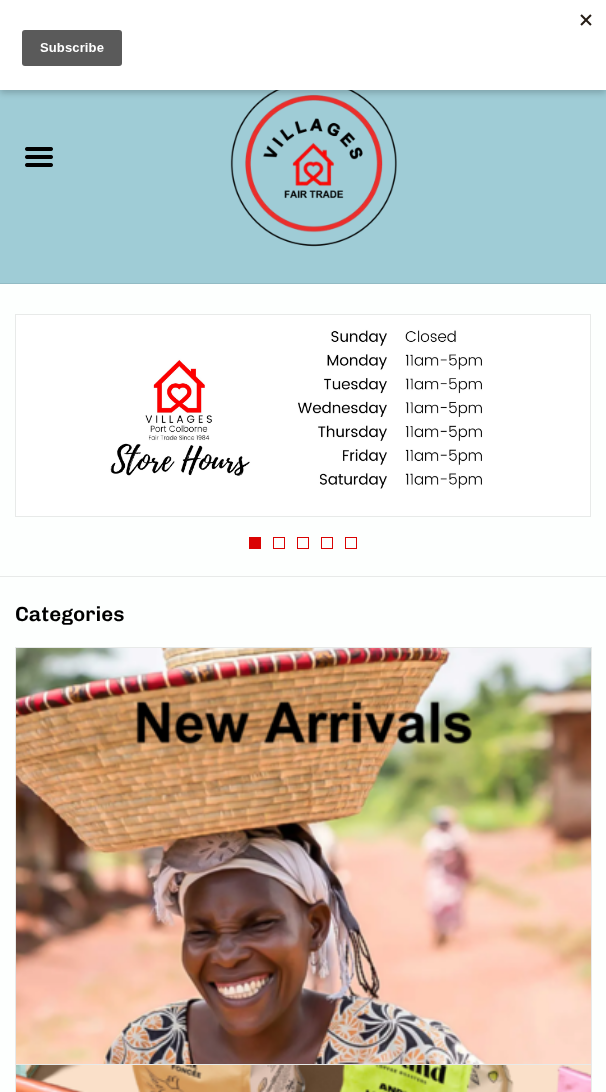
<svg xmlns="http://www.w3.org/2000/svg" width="606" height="1092">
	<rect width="100%" height="100%" fill="#9FCCD6" />
	<image x="230" y="90" width="167" height="157" href="assets/img2.png" />
	<rect x="0" y="3" width="606" height="90" fill="#000000" fill-opacity="0.2" filter="blur(3px)" />
	<rect x="0" y="0" width="606" height="90" fill="#FFFFFF" />
	<image x="22" y="14" width="570" height="52" href="assets/img1.png" />
	<rect x="0" y="283" width="606" height="1" fill="#92BBC4" />
	<image x="25" y="147" width="28" height="20" href="assets/img3.png" />
	<rect x="0" y="284" width="606" height="808" fill="#FDFFFE" />
	<rect x="15.5" y="314.5" width="575" height="202" fill="none" stroke="#E8EAE9" />
	<image x="16" y="315" width="574" height="201" href="assets/img4.png" />
	<rect x="249" y="537" width="12" height="12" fill="#DA0303" />
	<rect x="273.5" y="537.5" width="11" height="11" fill="none" stroke="#DA0303" />
	<rect x="297.5" y="537.5" width="11" height="11" fill="none" stroke="#DA0303" />
	<rect x="321.5" y="537.5" width="11" height="11" fill="none" stroke="#DA0303" />
	<rect x="345.5" y="537.5" width="11" height="11" fill="none" stroke="#DA0303" />
	<rect x="0" y="576" width="606" height="1" fill="#E8EAE9" />
	<text x="15" y="621" font-family="Chivo" font-size="20.5" font-weight="600" fill="#000000">Categories</text>
	<rect x="15.5" y="647.5" width="576" height="417" fill="none" stroke="#E8EAE9" />
	<image x="16" y="648" width="575" height="416" href="assets/img5.png" />
	<rect x="15.5" y="1064.5" width="576" height="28" fill="none" stroke="#E8EAE9" />
	<image x="16" y="1065" width="575" height="27" href="assets/img6.png" />
</svg>
